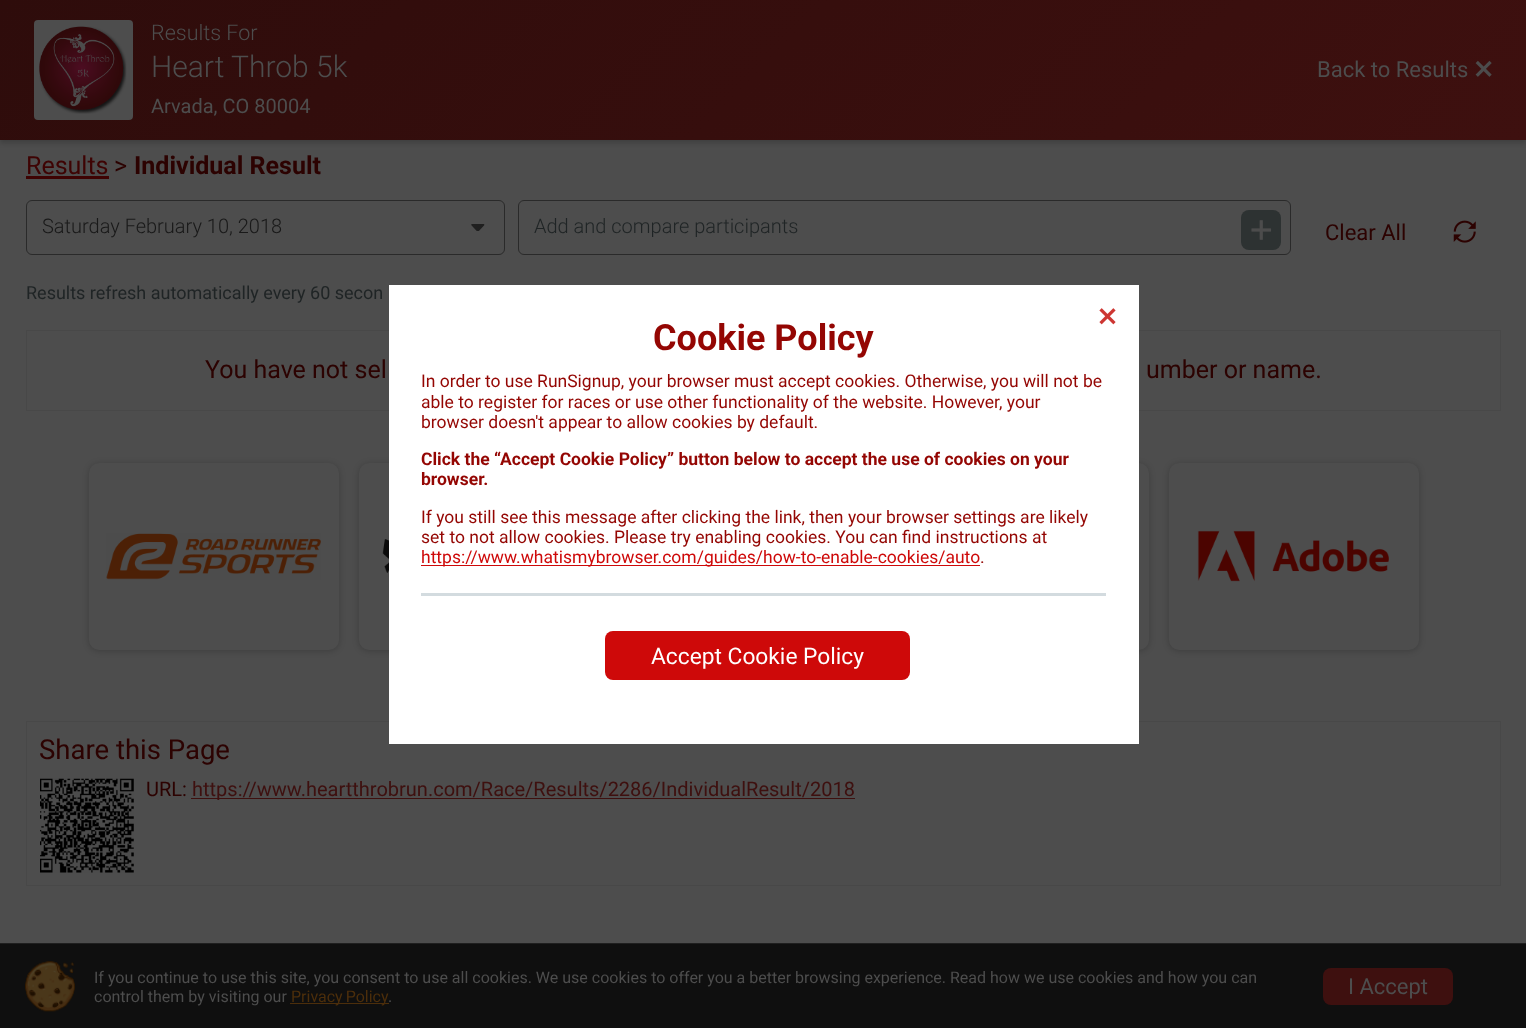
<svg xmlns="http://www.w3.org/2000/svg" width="1526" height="1028">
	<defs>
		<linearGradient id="g1" gradientUnits="userSpaceOnUse" x1="1180" y1="487" x2="347" y2="-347"><stop offset="0" stop-color="#3E100F" /><stop offset="1" stop-color="#2E0C0B" /></linearGradient>
	</defs>
	<rect width="100%" height="100%" fill="#4D4D4D" />
	<rect x="0" y="3" width="1526" height="140" fill="#000000" fill-opacity="0.18" filter="blur(2.5px)" />
	<rect x="0" y="0" width="1526" height="140" fill="url(#g1)" />
	<rect x="34" y="20" width="99" height="100" rx="4" fill="#4D4D4D" />
	<image x="39" y="26" width="88" height="88" href="assets/img1.png" />
	<text x="151" y="40" font-family="Roboto" font-size="21.5" font-weight="300" fill="#4D4D4D">Results For</text>
	<text x="151" y="77" font-family="Roboto" font-size="30" font-weight="300" fill="#4D4D4D">Heart Throb 5k</text>
	<text x="151" y="113" font-family="Roboto" font-size="20" fill="#4D4D4D">Arvada, CO 80004</text>
	<text x="1317" y="77" font-family="Roboto" font-size="22" fill="#4D4D4D">Back to Results</text>
	<image x="1475" y="60" width="17" height="17" href="assets/img2.png" />
	<text x="26" y="174" font-family="Roboto" font-size="25" fill="#3E0303">Results</text>
	<rect x="26" y="176" width="83" height="3" fill="#3E0303" />
	<text x="114" y="174" font-family="Roboto" font-size="25" fill="#2C0201">&gt;</text>
	<text x="134" y="174" font-family="Roboto" font-size="25" font-weight="700" fill="#2C0201">Individual Result</text>
	<image x="471" y="224" width="14" height="7" href="assets/img3.png" />
	<rect x="26.5" y="200.5" width="478" height="54" rx="5.5" fill="none" stroke="#2A2A2A" />
	<text x="42" y="233" font-family="Roboto" font-size="20" font-weight="300" fill="#191919">Saturday February 10, 2018</text>
	<rect x="518.5" y="200.5" width="772" height="54" rx="5.5" fill="none" stroke="#2A2A2A" />
	<text x="534" y="233" font-family="Roboto" font-size="20" font-weight="300" fill="#1F2425">Add and compare participants</text>
	<rect x="1241" y="210" width="40" height="40" rx="8" fill="#2D3232" />
	<image x="1251" y="220" width="21" height="20" href="assets/img4.png" />
	<text x="1325" y="240" font-family="Roboto" font-size="22" fill="#2C0201">Clear All</text>
	<image x="1453" y="220" width="23" height="23" href="assets/img5.png" />
	<text x="26" y="299" font-family="Roboto" font-size="18" fill="#1F2425">Results refresh automatically every 60 secon</text>
	<rect x="26.5" y="330.5" width="1474" height="80" fill="none" stroke="#484848" />
	<g font-family="Roboto" font-size="25" fill="#2C0201">
		<text x="205" y="378">You have not sel</text>
		<text x="1146" y="378">umber or name.</text>
	</g>
	<rect x="89" y="464" width="250" height="187" rx="10" fill="#000000" fill-opacity="0.2" filter="blur(3px)" />
	<rect x="89" y="463" width="250" height="187" rx="10" fill="#4D4D4D" />
	<image x="106" y="533" width="215" height="47" href="assets/img6.png" />
	<rect x="359" y="464" width="250" height="187" rx="10" fill="#000000" fill-opacity="0.2" filter="blur(3px)" />
	<rect x="359" y="463" width="250" height="187" rx="10" fill="#4D4D4D" />
	<image x="382" y="539" width="7" height="34" href="assets/img7.png" />
	<rect x="899" y="464" width="250" height="187" rx="10" fill="#000000" fill-opacity="0.2" filter="blur(3px)" />
	<rect x="899" y="463" width="250" height="187" rx="10" fill="#4D4D4D" />
	<rect x="1169" y="464" width="250" height="187" rx="10" fill="#000000" fill-opacity="0.2" filter="blur(3px)" />
	<rect x="1169" y="463" width="250" height="187" rx="10" fill="#4D4D4D" />
	<image x="1197" y="530" width="192" height="52" href="assets/img8.png" />
	<rect x="26.5" y="721.5" width="1474" height="164" fill="none" stroke="#484848" />
	<text x="39" y="759" font-family="Roboto" font-size="27.5" fill="#2C0201">Share this Page</text>
	<image x="40" y="778" width="94" height="95" href="assets/img9.png" />
	<text x="146" y="796" font-family="Roboto" font-size="20" fill="#2C0201">URL:</text>
	<rect x="191" y="798" width="664" height="1" fill="#3E100F" />
	<text x="192" y="796" font-family="Roboto" font-size="20" fill="#3E100F">https://www.heartthrobrun.com/Race/Results/2286/IndividualResult/2018</text>
	<rect x="389.5" y="285.5" width="749" height="458" fill="none" stroke="#FFFFFF" />
	<rect x="390" y="286" width="748" height="457" fill="#FFFFFF" />
	<image x="1099" y="308" width="17" height="17" href="assets/img10.png" />
	<text x="653" y="350" font-family="Roboto" font-size="36" font-weight="700" fill="#940603">Cookie Policy</text>
	<g font-family="Roboto" font-size="17.5" fill="#940603">
		<text x="421" y="387">In order to use RunSignup, your browser must accept cookies. Otherwise, you will not be</text>
		<text x="421" y="408">able to register for races or use other functionality of the website. However, your</text>
		<text x="421" y="428">browser doesn't appear to allow cookies by default.</text>
	</g>
	<g font-family="Roboto" font-size="17.5" font-weight="700" fill="#940603">
		<text x="421" y="465">Click the “Accept Cookie Policy” button below to accept the use of cookies on your</text>
		<text x="421" y="485">browser.</text>
	</g>
	<g font-family="Roboto" font-size="17.5" fill="#940603">
		<text x="421" y="523">If you still see this message after clicking the link, then your browser settings are likely</text>
		<text x="421" y="543">set to not allow cookies. Please try enabling cookies. You can find instructions at</text>
	</g>
	<rect x="421" y="565" width="559" height="1" fill="#CE0909" />
	<text x="421" y="563" font-family="Roboto" font-size="17.5" fill="#CE0909">https://www.whatismybrowser.com/guides/how-to-enable-cookies/auto</text>
	<text x="980" y="563" font-family="Roboto" font-size="17.5" fill="#940603">.</text>
	<rect x="421" y="593" width="685" height="3" fill="#D3DBDF" />
	<rect x="605" y="631" width="305" height="49" rx="8" fill="#CE0909" />
	<text x="651" y="664" font-family="Roboto" font-size="22.75" fill="#FFFFFF">Accept Cookie Policy</text>
	<rect x="0" y="944" width="1526" height="84" fill="#0F0F0F" />
	<rect x="0" y="943" width="1526" height="1" fill="#1F1F1F" />
	<image x="25" y="961" width="50" height="51" href="assets/img11.png" />
	<g font-family="Roboto" font-size="16" fill="#4D4D4D">
		<text x="94" y="983">If you continue to use this site, you consent to use all cookies. We use cookies to offer you a better browsing experience. Read how we use cookies and how you can</text>
		<text x="94" y="1002">control them by visiting our</text>
	</g>
	<rect x="290" y="1003" width="99" height="1" fill="#4C2E0B" />
	<text x="291" y="1002" word-spacing="-1" font-family="Roboto" font-size="16" fill="#4C2E0B">Privacy Policy</text>
	<text x="388" y="1002" font-family="Roboto" font-size="16" fill="#4D4D4D">.</text>
	<rect x="1323" y="968" width="130" height="37" rx="8" fill="#3E100F" />
	<text x="1348" y="994" font-family="Roboto" font-size="22" fill="#4D4D4D">I Accept</text>
</svg>
